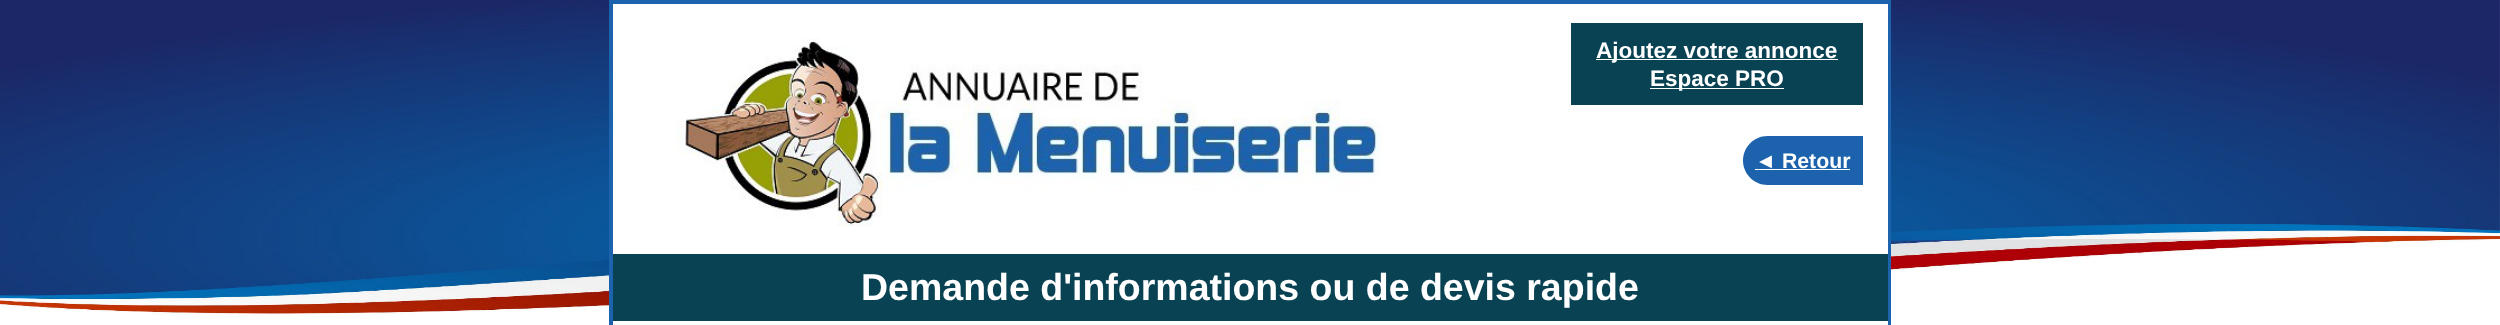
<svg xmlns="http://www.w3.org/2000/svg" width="2500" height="325">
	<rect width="100%" height="100%" fill="#FFFFFF" />
	<image x="0" y="0" width="2500" height="320" href="assets/img1.png" />
	<rect x="611" y="2" width="1278" height="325" fill="none" stroke="#1C62AC" stroke-width="4" />
	<rect x="613" y="4" width="1275" height="250" fill="#FFFFFF" />
	<image x="676" y="39" width="706" height="188" href="assets/img2.png" />
	<rect x="1571" y="23" width="292" height="82" fill="#094353" />
	<rect x="1596" y="59" width="242" height="1" fill="#FFFFFF" />
	<text x="1596" y="58" font-family="Liberation Sans" font-size="22.5" font-weight="700" fill="#FFFFFF">Ajoutez votre annonce</text>
	<rect x="1650" y="88" width="134" height="1" fill="#FFFFFF" />
	<text x="1650" y="86" font-family="Liberation Sans" font-size="22.5" font-weight="700" fill="#FFFFFF">Espace PRO</text>
	<path d="M1767.5 136H1863V185H1767.5C1754 185 1743 174 1743 160.5C1743 147 1754 136 1767.5 136Z" fill="#1C62AC" />
	<text x="1755" y="168" font-family="Liberation Sans" font-size="21.25" font-weight="700" fill="#FFFFFF">◄ Retour</text>
	<rect x="1755" y="169" width="95" height="1" fill="#FFFFFF" />
	<rect x="613" y="254" width="1275" height="67" fill="#094353" />
	<text x="861" y="300" font-family="Liberation Sans" font-size="37.5" font-weight="700" fill="#FFFFFF">Demande d'informations ou de devis rapide</text>
	<rect x="1887" y="321" width="1" height="4" fill="#FFFFFF" />
</svg>
